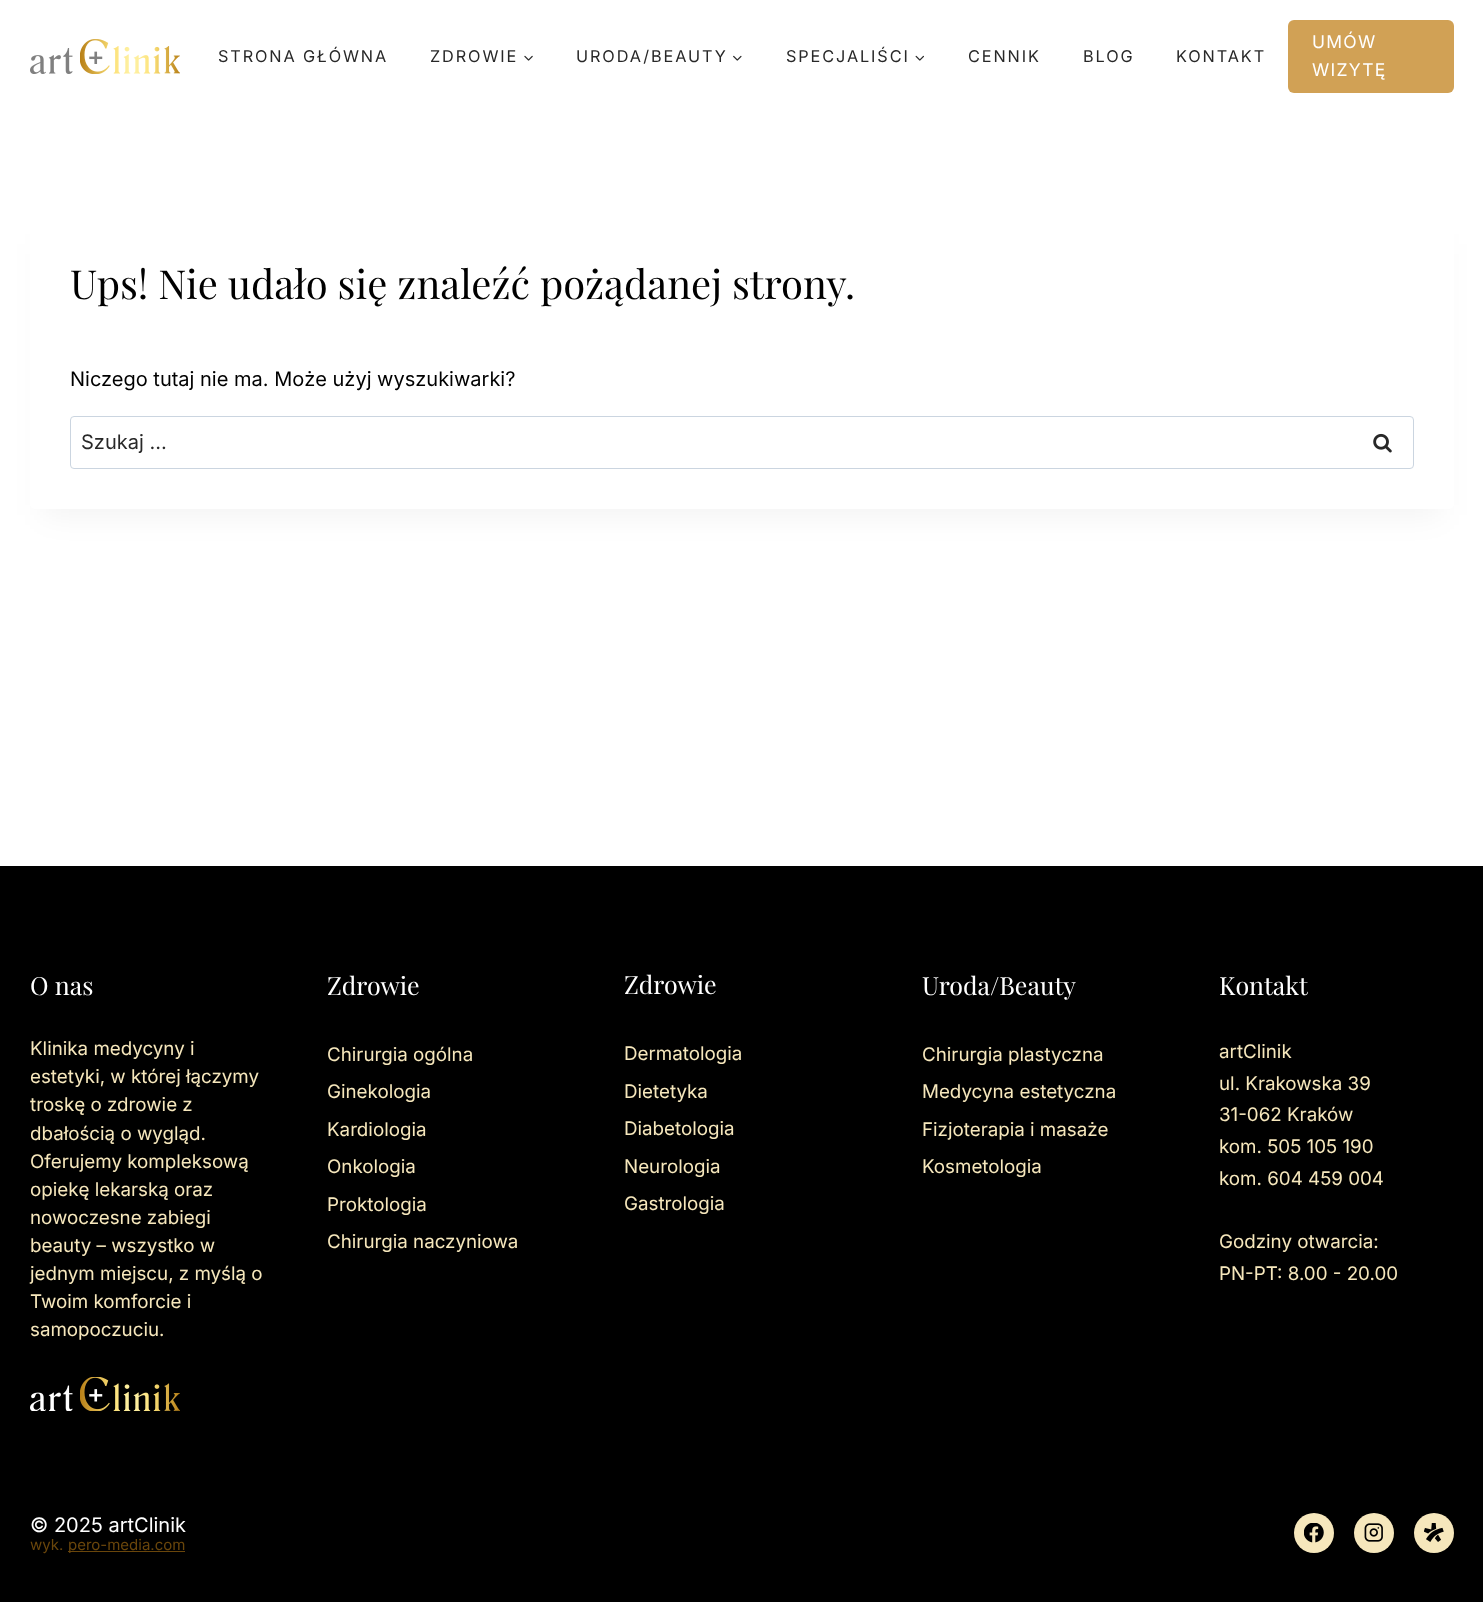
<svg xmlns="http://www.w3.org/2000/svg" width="1483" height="1602">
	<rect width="100%" height="100%" fill="#FFFFFF" />
	<image x="30" y="39" width="150" height="35" href="assets/img1.png" />
	<g font-family="Inter" font-size="16.25" letter-spacing="1.9" fill="#282828">
		<text x="218" y="62">STRONA GŁÓWNA</text>
		<text x="430" y="62">ZDROWIE</text>
	</g>
	<image x="524" y="55" width="9" height="6" href="assets/img2.png" />
	<text x="576" y="62" font-family="Inter" font-size="16.25" letter-spacing="1.9" fill="#282828">URODA/BEAUTY</text>
	<image x="733" y="55" width="9" height="6" href="assets/img3.png" />
	<text x="786" y="62" font-family="Inter" font-size="16.25" letter-spacing="1.9" fill="#282828">SPECJALIŚCI</text>
	<image x="915" y="55" width="9" height="6" href="assets/img4.png" />
	<g font-family="Inter" font-size="16.25" letter-spacing="1.9" fill="#282828">
		<text x="968" y="62">CENNIK</text>
		<text x="1083" y="62">BLOG</text>
		<text x="1176" y="62">KONTAKT</text>
	</g>
	<rect x="1288" y="20" width="166" height="73" rx="6" fill="#D1A155" />
	<g font-family="Inter" font-size="17.5" letter-spacing="1.25" fill="#FFFFFF">
		<text x="1312" y="48">UMÓW</text>
		<text x="1312" y="76">WIZYTĘ</text>
	</g>
	<rect x="43" y="244" width="1398" height="271" fill="#000000" fill-opacity="0.05" filter="blur(15.5px)" />
	<rect x="30" y="213" width="1424" height="296" rx="5" fill="#FFFFFF" />
	<text x="70" y="299" font-family="Playfair Display" font-size="40" fill="#000000">Ups! Nie udało się znaleźć pożądanej strony.</text>
	<text x="70" y="386" font-family="Inter" font-size="20" fill="#000000">Niczego tutaj nie ma. Może użyj wyszukiwarki?</text>
	<rect x="70.5" y="416.5" width="1343" height="52" rx="3.5" fill="none" stroke="#CBD5E0" />
	<text x="81" y="449" font-family="Inter" font-size="20" fill="#282828">Szukaj …</text>
	<image x="1373" y="433" width="19" height="20" href="assets/img5.png" />
	<rect x="0" y="866" width="1483" height="736" fill="#000000" />
	<text x="30" y="995" font-family="Playfair Display" font-size="25" fill="#FFFFFF">O nas</text>
	<g font-family="Inter" font-size="18.75" fill="#F6E7BC">
		<text x="30" y="1055">Klinika medycyny i</text>
		<text x="30" y="1083">estetyki, w której łączymy</text>
		<text x="30" y="1111">troskę o zdrowie z</text>
		<text x="30" y="1140">dbałością o wygląd.</text>
		<text x="30" y="1168">Oferujemy kompleksową</text>
		<text x="30" y="1196">opiekę lekarską oraz</text>
		<text x="30" y="1224">nowoczesne zabiegi</text>
		<text x="30" y="1252">beauty – wszystko w</text>
		<text x="30" y="1280">jednym miejscu, z myślą o</text>
		<text x="30" y="1308">Twoim komforcie i</text>
		<text x="30" y="1336">samopoczuciu.</text>
	</g>
	<image x="30" y="1377" width="150" height="34" href="assets/img6.png" />
	<text x="327" y="995" font-family="Playfair Display" font-size="25" fill="#FFFFFF">Zdrowie</text>
	<g font-family="Inter" font-size="18.75" fill="#F6E7BC">
		<text x="327" y="1061">Chirurgia ogólna</text>
		<text x="327" y="1098">Ginekologia</text>
		<text x="327" y="1136">Kardiologia</text>
		<text x="327" y="1173">Onkologia</text>
		<text x="327" y="1211">Proktologia</text>
		<text x="327" y="1248">Chirurgia naczyniowa</text>
	</g>
	<text x="624" y="994" font-family="Playfair Display" font-size="25" fill="#FFFFFF">Zdrowie</text>
	<g font-family="Inter" font-size="18.75" fill="#F6E7BC">
		<text x="624" y="1060">Dermatologia</text>
		<text x="624" y="1098">Dietetyka</text>
		<text x="624" y="1135">Diabetologia</text>
		<text x="624" y="1173">Neurologia</text>
		<text x="624" y="1210">Gastrologia</text>
	</g>
	<text x="922" y="995" font-family="Playfair Display" font-size="25" fill="#FFFFFF">Uroda/Beauty</text>
	<g font-family="Inter" font-size="18.75" fill="#F6E7BC">
		<text x="922" y="1061">Chirurgia plastyczna</text>
		<text x="922" y="1098">Medycyna estetyczna</text>
		<text x="922" y="1136">Fizjoterapia i masaże</text>
		<text x="922" y="1173">Kosmetologia</text>
	</g>
	<text x="1219" y="995" font-family="Playfair Display" font-size="25" fill="#FFFFFF">Kontakt</text>
	<g font-family="Inter" font-size="18.75" fill="#F6E7BC">
		<text x="1219" y="1058">artClinik</text>
		<text x="1219" y="1090">ul. Krakowska 39</text>
		<text x="1219" y="1121">31-062 Kraków</text>
		<text x="1219" y="1153">kom. 505 105 190</text>
		<text x="1219" y="1185">kom. 604 459 004</text>
		<text x="1219" y="1248">Godziny otwarcia:</text>
		<text x="1219" y="1280">PN-PT: 8.00 - 20.00</text>
	</g>
	<text x="30" y="1532" font-family="Inter" font-size="20" fill="#FFFFFF">© 2025 artClinik</text>
	<text x="30" y="1550" font-family="Inter" font-size="15" fill="#6A460B">wyk.</text>
	<rect x="68" y="1551" width="117" height="1" fill="#6A460B" />
	<text x="68" y="1550" font-family="Inter" font-size="15" fill="#6A460B">pero-media.com</text>
	<circle cx="1314" cy="1533" r="20" fill="#F6E7BC" />
	<image x="1304" y="1523" width="20" height="20" href="assets/img7.png" />
	<circle cx="1374" cy="1533" r="20" fill="#F6E7BC" />
	<image x="1364" y="1523" width="19" height="19" href="assets/img8.png" />
	<circle cx="1434" cy="1533" r="20" fill="#F6E7BC" />
	<image x="1424" y="1523" width="20" height="19" href="assets/img9.png" />
</svg>
